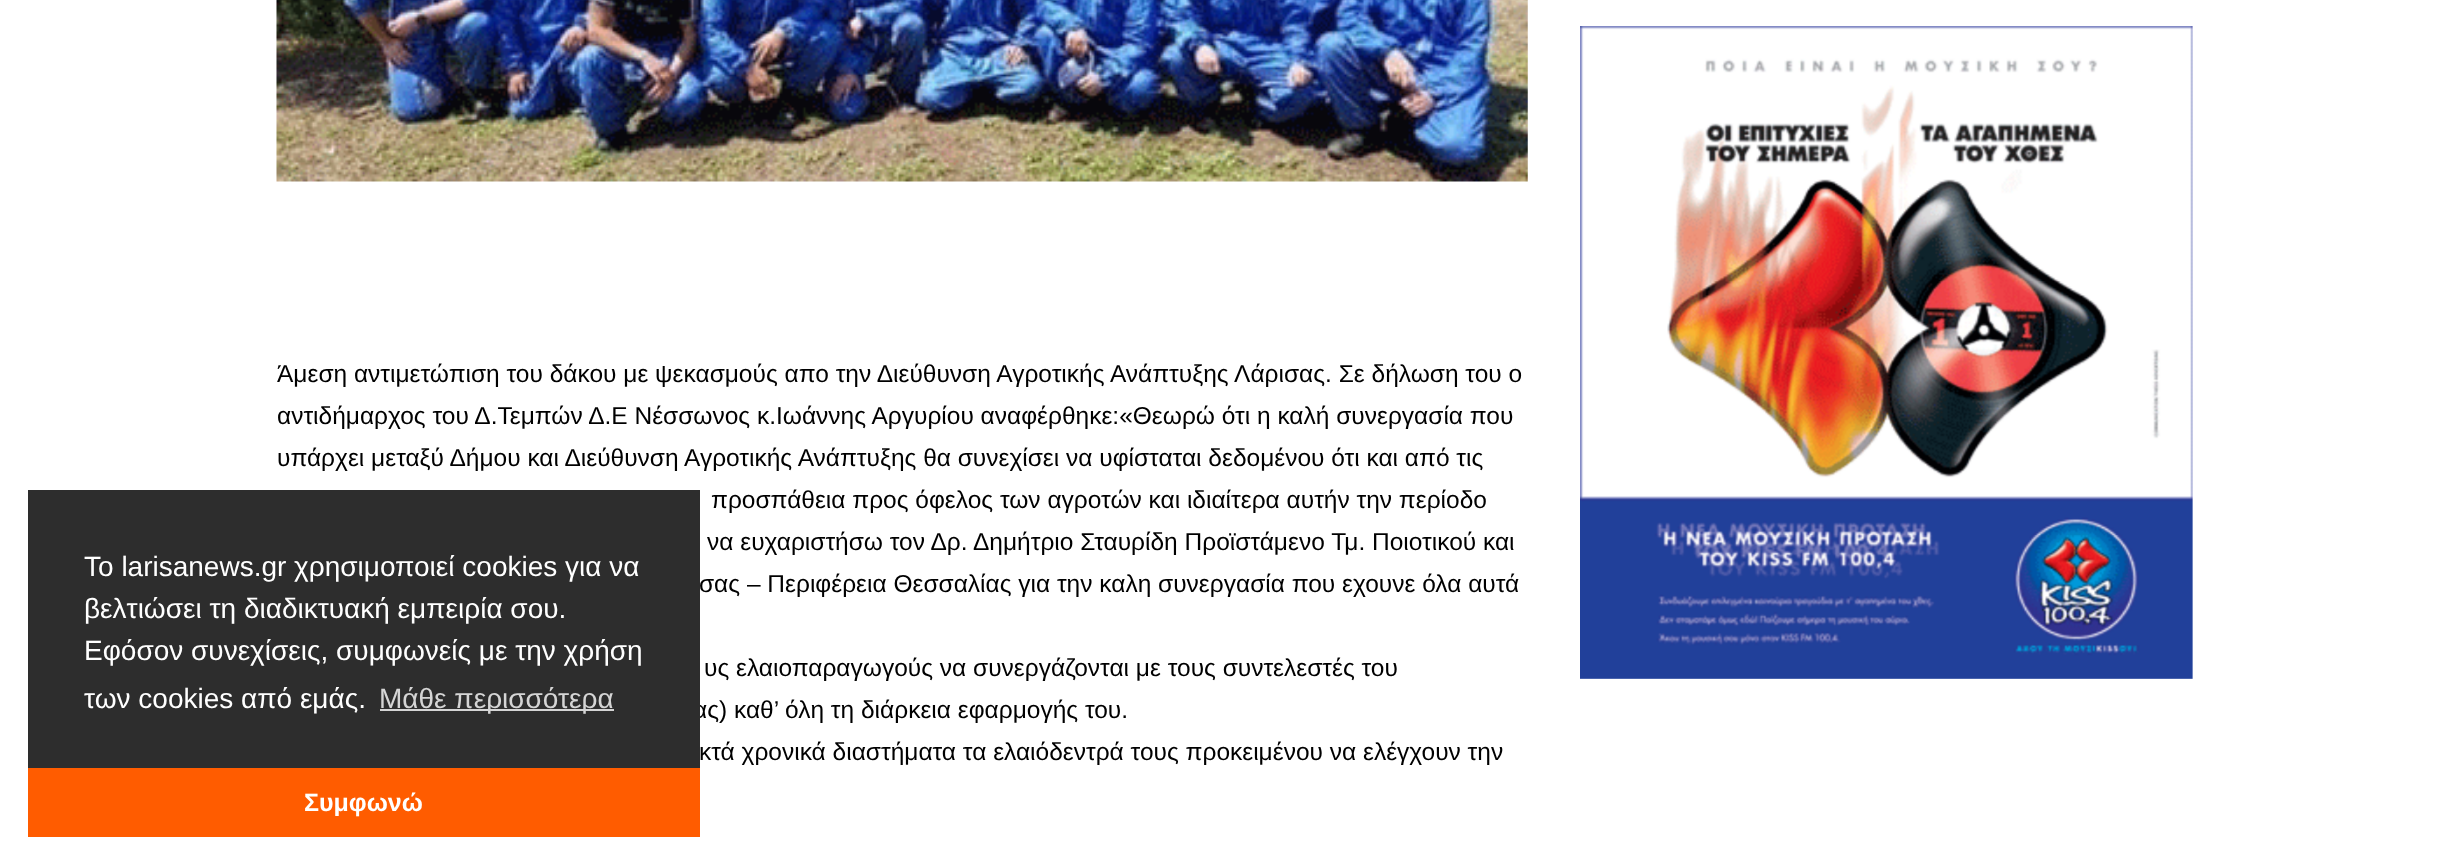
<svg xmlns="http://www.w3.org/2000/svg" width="2443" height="864">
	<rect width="100%" height="100%" fill="#FFFFFF" />
	<image x="276" y="0" width="1252" height="182" href="assets/img1.png" />
	<g font-family="Liberation Sans" font-size="24.5" fill="#000000">
		<text x="277" y="382">Άμεση αντιμετώπιση του δάκου με ψεκασμούς απο την Διεύθυνση Αγροτικής Ανάπτυξης Λάρισας. Σε δήλωση του ο</text>
		<text x="277" y="424">αντιδήμαρχος του Δ.Τεμπών Δ.Ε Νέσσωνος κ.Ιωάννης Αργυρίου αναφέρθηκε:«Θεωρώ ότι η καλή συνεργασία που</text>
		<text x="277" y="466">υπάρχει μεταξύ Δήμου και Διεύθυνση Αγροτικής Ανάπτυξης θα συνεχίσει να υφίσταται δεδομένου ότι και από τις</text>
		<text x="711" y="508">προσπάθεια προς όφελος των αγροτών και ιδιαίτερα αυτήν την περίοδο</text>
		<text x="707" y="550">να ευχαριστήσω τον Δρ. Δημήτριο Σταυρίδη Προϊστάμενο Τμ. Ποιοτικού και</text>
		<text x="699" y="592">σας – Περιφέρεια Θεσσαλίας για την καλη συνεργασία που εχουνε όλα αυτά</text>
		<text x="704" y="676">υς ελαιοπαραγωγούς να συνεργάζονται με τους συντελεστές του</text>
		<text x="693" y="718">ας) καθ’ όλη τη διάρκεια εφαρμογής του.</text>
		<text x="699" y="760">κτά χρονικά διαστήματα τα ελαιόδεντρά τους προκειμένου να ελέγχουν την</text>
	</g>
	<image x="1580" y="26" width="613" height="653" href="assets/img2.png" />
	<rect x="28" y="490" width="672" height="278" fill="#2D2D2D" />
	<g font-family="Liberation Sans" font-size="28" fill="#FFFFFF">
		<text x="84" y="576">Το larisanews.gr χρησιμοποιεί cookies για να</text>
		<text x="84" y="618">βελτιώσει τη διαδικτυακή εμπειρία σου.</text>
		<text x="84" y="660">Εφόσον συνεχίσεις, συμφωνείς με την χρήση</text>
		<text x="84" y="708">των cookies από εμάς.</text>
	</g>
	<rect x="380" y="709" width="234" height="2" fill="#D5D5D5" />
	<text x="379" y="708" font-family="Liberation Sans" font-size="28" fill="#D5D5D5">Μάθε περισσότερα</text>
	<rect x="28" y="768" width="672" height="69" fill="#FF5C00" />
	<text x="304" y="811" font-family="Liberation Sans" font-size="25" font-weight="700" fill="#FFFFFF">Συμφωνώ</text>
</svg>
